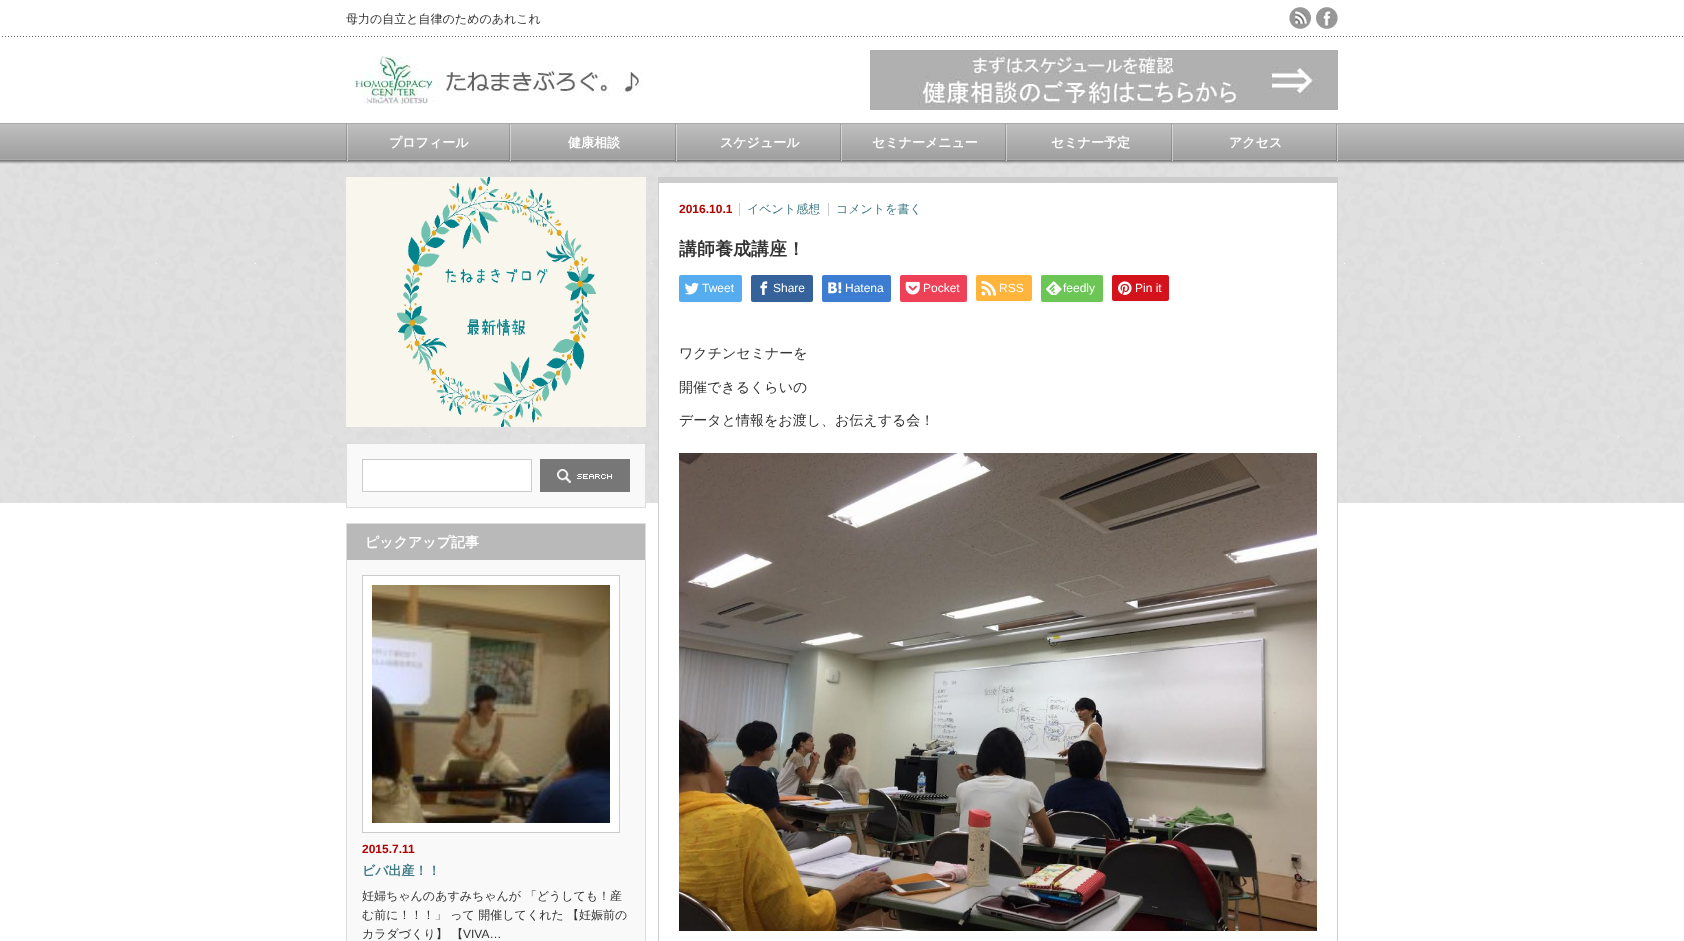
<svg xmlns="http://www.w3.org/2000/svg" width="1684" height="941">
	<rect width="100%" height="100%" fill="#FFFFFF" />
	<image x="0" y="36" width="1684" height="467" href="assets/img1.png" />
	<text x="346" y="23" font-family="WenQuanYi Zen Hei" font-size="12" font-weight="500" fill="#333333">母力の自立と自律のためのあれこれ</text>
	<image x="1289" y="7" width="22" height="22" href="assets/img2.png" />
	<image x="1316" y="7" width="22" height="22" href="assets/img3.png" />
	<image x="352" y="56" width="290" height="48" href="assets/img4.png" />
	<image x="870" y="50" width="468" height="60" href="assets/img5.png" />
	<image x="346" y="124" width="2" height="37" href="assets/img6.png" />
	<image x="509" y="124" width="2" height="37" href="assets/img6.png" />
	<text x="389" y="147" font-family="WenQuanYi Zen Hei" font-size="13" font-weight="700" fill="#FFFFFF">プロフィール</text>
	<image x="675" y="124" width="2" height="37" href="assets/img6.png" />
	<text x="568" y="147" font-family="WenQuanYi Zen Hei" font-size="13" font-weight="700" fill="#FFFFFF">健康相談</text>
	<image x="840" y="124" width="2" height="37" href="assets/img6.png" />
	<text x="720" y="147" font-family="WenQuanYi Zen Hei" font-size="13" font-weight="700" fill="#FFFFFF">スケジュール</text>
	<image x="1005" y="124" width="2" height="37" href="assets/img6.png" />
	<text x="872" y="147" font-family="WenQuanYi Zen Hei" font-size="13" font-weight="700" fill="#FFFFFF">セミナーメニュー</text>
	<image x="1171" y="124" width="2" height="37" href="assets/img6.png" />
	<text x="1051" y="147" font-family="WenQuanYi Zen Hei" font-size="13" font-weight="700" fill="#FFFFFF">セミナー予定</text>
	<image x="1336" y="124" width="2" height="37" href="assets/img6.png" />
	<text x="1229" y="147" font-family="WenQuanYi Zen Hei" font-size="13" font-weight="700" fill="#FFFFFF">アクセス</text>
	<image x="346" y="177" width="300" height="250" href="assets/img7.png" />
	<rect x="659" y="183" width="678" height="320" fill="#FFFFFF" />
	<rect x="658" y="177" width="680" height="6" fill="#CCCCCC" />
	<rect x="1337" y="177" width="1" height="764" fill="#CCCCCC" />
	<rect x="658" y="177" width="1" height="764" fill="#CCCCCC" />
	<rect x="739" y="203" width="1" height="13" fill="#CCCCCC" />
	<text x="679" y="213" font-family="Liberation Sans" font-size="12" font-weight="700" fill="#B20000">2016.10.1</text>
	<rect x="828" y="203" width="1" height="13" fill="#CCCCCC" />
	<g font-family="WenQuanYi Zen Hei" font-size="12" font-weight="500" fill="#3F7985">
		<text x="747" y="213">イベント感想</text>
		<text x="836" y="213">コメントを書く</text>
	</g>
	<text x="679" y="255" font-family="WenQuanYi Zen Hei" font-size="18" font-weight="700" fill="#333333">講師養成講座！</text>
	<path d="M679 300C679 306 687 303 691 303H730C734 303 742 306 742 300L741 302H691C687 302 679 304 679 300Z" fill="#F7F7F7" />
	<rect x="679" y="275" width="63" height="27" rx="2" fill="#55ACEE" />
	<image x="684" y="282" width="15" height="13" href="assets/img8.png" />
	<text x="702" y="292" font-family="Liberation Sans" font-size="12" fill="#FFFFFF">Tweet</text>
	<path d="M751 300C751 306 759 303 763 303H801C805 303 813 306 813 300L812 302H763C759 302 751 304 751 300Z" fill="#F7F7F7" />
	<rect x="751" y="275" width="62" height="27" rx="2" fill="#35629A" />
	<image x="760" y="281" width="8" height="14" href="assets/img9.png" />
	<text x="773" y="292" font-family="Liberation Sans" font-size="12" fill="#FFFFFF">Share</text>
	<path d="M822 300C822 306 831 303 835 303H878C882 303 891 306 891 300C891 301 890 302 889 302H823Z" fill="#F7F7F7" />
	<rect x="822" y="275" width="69" height="27" rx="2" fill="#3C7DD1" />
	<image x="828" y="282" width="14" height="12" href="assets/img10.png" />
	<text x="845" y="292" font-family="Liberation Sans" font-size="12" fill="#FFFFFF">Hatena</text>
	<path d="M900 300C900 306 909 303 912 303H954C958 303 967 306 967 300L966 302H902L900 301Z" fill="#F7F7F7" />
	<rect x="900" y="275" width="67" height="27" rx="2" fill="#EE4056" />
	<image x="905" y="281" width="15" height="14" href="assets/img11.png" />
	<text x="923" y="292" font-family="Liberation Sans" font-size="12" fill="#FFFFFF">Pocket</text>
	<path d="M976 299C976 304 983 302 987 302H1021C1025 302 1032 304 1032 299L1031 301H977Z" fill="#F7F7F7" />
	<rect x="976" y="275" width="56" height="26" rx="2" fill="#FFB53C" />
	<image x="981" y="280" width="16" height="16" href="assets/img12.png" />
	<text x="999" y="292" font-family="Liberation Sans" font-size="12" fill="#FFFFFF">RSS</text>
	<path d="M1041 300C1041 306 1049 303 1053 303H1091C1095 303 1103 306 1103 300L1102 302H1053C1049 302 1041 304 1041 300Z" fill="#F7F7F7" />
	<rect x="1041" y="275" width="62" height="27" rx="2" fill="#6CC655" />
	<image x="1046" y="281" width="16" height="14" href="assets/img13.png" />
	<text x="1063" y="292" font-family="Liberation Sans" font-size="12" fill="#FFFFFF">feedly</text>
	<path d="M1112 299C1112 304 1119 302 1123 302H1158C1162 302 1169 304 1169 299L1168 301H1123C1119 301 1112 303 1112 299Z" fill="#F7F7F7" />
	<rect x="1112" y="275" width="57" height="26" rx="2" fill="#D4121C" />
	<image x="1118" y="281" width="14" height="14" href="assets/img14.png" />
	<text x="1135" y="292" font-family="Liberation Sans" font-size="12" fill="#FFFFFF">Pin it</text>
	<g font-family="WenQuanYi Zen Hei" font-size="14" font-weight="500" fill="#333333">
		<text x="679" y="358">ワクチンセミナーを</text>
		<text x="679" y="392">開催できるくらいの</text>
		<text x="679" y="425">データと情報をお渡し、お伝えする会！</text>
	</g>
	<image x="679" y="453" width="638" height="478" href="assets/img15.png" />
	<rect x="346.5" y="443.5" width="299" height="64" fill="#F9F9F9" stroke="#DDDDDD" />
	<rect x="362.5" y="459.5" width="169" height="32" fill="#FFFFFF" stroke="#CCCCCC" />
	<image x="540" y="459" width="90" height="33" href="assets/img16.png" />
	<rect x="347" y="560" width="298" height="381" fill="#F9F9F9" />
	<rect x="346.5" y="523.5" width="299" height="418" fill="none" stroke="#DDDDDD" />
	<rect x="347" y="524" width="298" height="36" fill="#B9B9B9" />
	<text x="365" y="547" font-family="WenQuanYi Zen Hei" font-size="14" font-weight="700" fill="#FFFFFF">ピックアップ記事</text>
	<rect x="362.5" y="575.5" width="257" height="257" fill="#FFFFFF" stroke="#CCCCCC" />
	<image x="372" y="585" width="238" height="238" href="assets/img17.png" />
	<text x="362" y="853" font-family="Liberation Sans" font-size="12" font-weight="700" fill="#B20000">2015.7.11</text>
	<text x="362" y="875" font-family="WenQuanYi Zen Hei" font-size="13" font-weight="700" fill="#3F7985">ビバ出産！！</text>
	<g font-family="WenQuanYi Zen Hei" font-size="12" font-weight="500" fill="#333333">
		<text x="362" y="900">妊婦ちゃんのあすみちゃんが 「どうしても！産</text>
		<text x="362" y="919">む前に！！！」 って 開催してくれた</text>
		<text x="567" y="919">【妊娠前の</text>
		<text x="362" y="938">カラダづくり】 【</text>
	</g>
	<text x="463" y="938" font-family="Liberation Sans" font-size="12" fill="#333333">VIVA…</text>
</svg>
